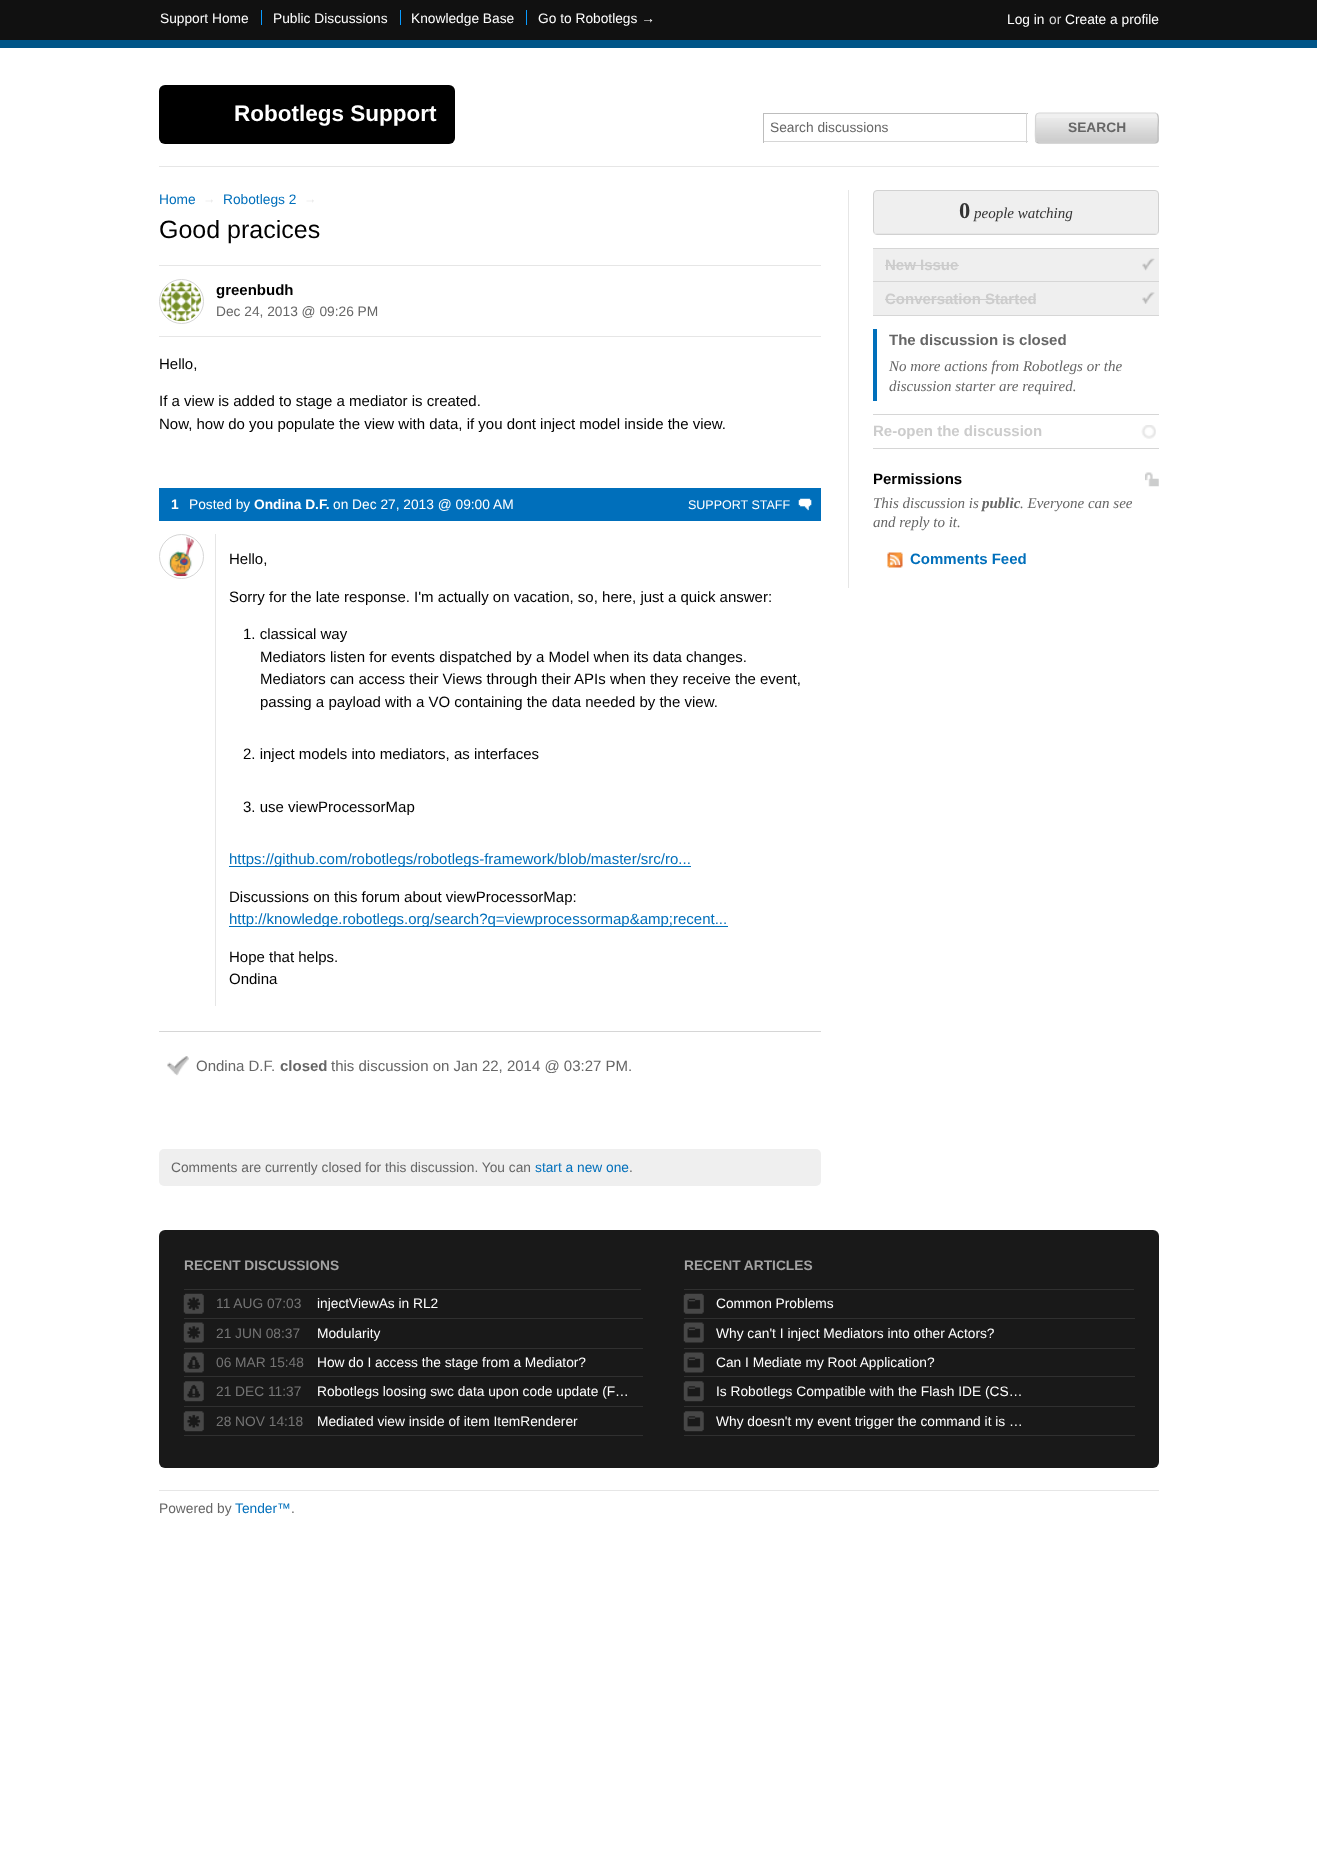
<svg xmlns="http://www.w3.org/2000/svg" width="1317" height="1856">
	<rect width="100%" height="100%" fill="#FFFFFF" />
	<rect x="0" y="0" width="1317" height="40" fill="#111111" />
	<rect x="0" y="40" width="1317" height="8" fill="#005588" />
	<g font-family="Liberation Sans" font-size="13.75" fill="#FFFFFF">
		<text x="160" y="23">Support Home</text>
		<text x="273" y="23">Public Discussions</text>
	</g>
	<rect x="261" y="10" width="1" height="15" fill="#089BFF" />
	<text x="411" y="23" font-family="Liberation Sans" font-size="13.75" fill="#FFFFFF">Knowledge Base</text>
	<rect x="400" y="10" width="1" height="15" fill="#089BFF" />
	<text x="538" y="23" font-family="Liberation Sans" font-size="13.75" fill="#FFFFFF">Go to Robotlegs →</text>
	<rect x="526" y="10" width="1" height="15" fill="#089BFF" />
	<text x="1007" y="24" font-family="Liberation Sans" font-size="13.75" fill="#FFFFFF">Log in</text>
	<text x="1049" y="24" font-family="Liberation Sans" font-size="13.75" fill="#D9D9D9">or</text>
	<text x="1065" y="24" font-family="Liberation Sans" font-size="13.75" fill="#FFFFFF">Create a profile</text>
	<rect x="159" y="166" width="1000" height="1" fill="#E6E6E6" />
	<rect x="159" y="85" width="296" height="59" rx="6" fill="#000000" />
	<text x="234" y="121" font-family="Liberation Sans" font-size="22.5" font-weight="700" fill="#FFFFFF">Robotlegs Support</text>
	<rect x="763" y="113" width="265" height="1" fill="#BDBDBD" />
	<rect x="1026" y="113" width="1" height="30" fill="#D6D6D6" />
	<rect x="763" y="141" width="265" height="1" fill="#D6D6D6" />
	<rect x="763" y="113" width="1" height="30" fill="#BDBDBD" />
	<text x="770" y="132" font-family="Liberation Sans" font-size="13.75" fill="#666666">Search discussions</text>
	<rect x="1035" y="113" width="124" height="31" rx="4" fill="#F0F0F0" />
	<image x="1035" y="118" width="124" height="25" href="assets/img1.png" />
	<path d="M1157 114C1159.5 116 1158 125.5 1158 128V136C1158 138.5 1159 143 1155 143H1038.5L1036.5 142" fill="none" stroke="#BDBDBD" stroke-width="1.2" />
	<path d="M1036.5 142C1034.5 140 1035.5 131 1035.5 128V120C1035.5 118 1035 113 1039 113H1155.5L1157 114" fill="none" stroke="#D6D6D6" stroke-width="1.2" />
	<text x="1068" y="132" font-family="Liberation Sans" font-size="13.75" font-weight="700" fill="#666666">SEARCH</text>
	<text x="159" y="204" font-family="Liberation Sans" font-size="13.75" fill="#006FBB">Home</text>
	<text x="203" y="203" font-family="Liberation Sans" font-size="12.5" fill="#E6E6E6">→</text>
	<text x="223" y="204" font-family="Liberation Sans" font-size="13.75" fill="#006FBB">Robotlegs 2</text>
	<text x="304" y="203" font-family="Liberation Sans" font-size="12.5" fill="#E6E6E6">→</text>
	<text x="159" y="238" font-family="Liberation Sans" font-size="25" fill="#000000">Good pracices</text>
	<rect x="159" y="265" width="662" height="1" fill="#E6E6E6" />
	<rect x="159" y="336" width="662" height="1" fill="#E6E6E6" />
	<circle cx="181.5" cy="301.5" r="22" fill="none" stroke="#D6D6D6" />
	<image x="161" y="281" width="41" height="41" href="assets/img2.png" />
	<text x="216" y="295" font-family="Liberation Sans" font-size="15" font-weight="700" fill="#000000">greenbudh</text>
	<text x="216" y="316" font-family="Liberation Sans" font-size="13.75" fill="#666666">Dec 24, 2013 @ 09:26 PM</text>
	<g font-family="Liberation Sans" font-size="15" fill="#000000">
		<text x="159" y="369">Hello,</text>
		<text x="159" y="406">If a view is added to stage a mediator is created.</text>
		<text x="159" y="429">Now, how do you populate the view with data, if you dont inject model inside the view.</text>
	</g>
	<rect x="159" y="488" width="662" height="33" fill="#006FBB" />
	<text x="171" y="509" font-family="Liberation Sans" font-size="13.75" font-weight="700" fill="#FFFFFF">1</text>
	<text x="189" y="509" font-family="Liberation Sans" font-size="13.75" fill="#FFFFFF">Posted by</text>
	<text x="254" y="509" font-family="Liberation Sans" font-size="13.75" font-weight="700" fill="#FFFFFF">Ondina D.F.</text>
	<text x="333" y="509" font-family="Liberation Sans" font-size="13.75" fill="#FFFFFF">on Dec 27, 2013 @ 09:00 AM</text>
	<image x="798" y="498" width="14" height="13" href="assets/img3.png" />
	<text x="688" y="509" font-family="Liberation Sans" font-size="12.5" fill="#FFFFFF">SUPPORT STAFF</text>
	<circle cx="181.5" cy="556.5" r="22" fill="none" stroke="#D6D6D6" />
	<image x="168" y="537" width="27" height="40" href="assets/img4.png" />
	<rect x="215" y="534" width="1" height="472" fill="#E6E6E6" />
	<g font-family="Liberation Sans" font-size="15" fill="#000000">
		<text x="229" y="564">Hello,</text>
		<text x="229" y="602">Sorry for the late response. I'm actually on vacation, so, here, just a quick answer:</text>
		<text x="243" y="639">1. classical way</text>
		<text x="260" y="662">Mediators listen for events dispatched by a Model when its data changes.</text>
		<text x="260" y="684">Mediators can access their Views through their APIs when they receive the event,</text>
		<text x="260" y="707">passing a payload with a VO containing the data needed by the view.</text>
		<text x="243" y="759">2. inject models into mediators, as interfaces</text>
		<text x="243" y="812">3. use viewProcessorMap</text>
	</g>
	<rect x="229" y="866" width="462" height="1" fill="#006FBB" />
	<text x="229" y="864" font-family="Liberation Sans" font-size="15" fill="#006FBB">https://github.com/robotlegs/robotlegs-framework/blob/master/src/ro...</text>
	<text x="229" y="902" font-family="Liberation Sans" font-size="15" fill="#000000">Discussions on this forum about viewProcessorMap:</text>
	<rect x="229" y="926" width="499" height="1" fill="#006FBB" />
	<text x="229" y="924" font-family="Liberation Sans" font-size="15" fill="#006FBB">http://knowledge.robotlegs.org/search?q=viewprocessormap&amp;amp;recent...</text>
	<g font-family="Liberation Sans" font-size="15" fill="#000000">
		<text x="229" y="962">Hope that helps.</text>
		<text x="229" y="984">Ondina</text>
	</g>
	<rect x="159" y="1031" width="662" height="1" fill="#D6D6D6" />
	<image x="167" y="1056" width="22" height="20" href="assets/img5.png" />
	<text x="196" y="1071" font-family="Liberation Sans" font-size="15" fill="#666666">Ondina D.F.</text>
	<text x="280" y="1071" font-family="Liberation Sans" font-size="15" font-weight="700" fill="#666666">closed</text>
	<text x="331" y="1071" font-family="Liberation Sans" font-size="15" fill="#666666">this discussion on Jan 22, 2014 @ 03:27 PM.</text>
	<rect x="159" y="1149" width="662" height="37" rx="5" fill="#EFEFEF" />
	<text x="171" y="1172" font-family="Liberation Sans" font-size="13.75" fill="#666666">Comments are currently closed for this discussion. You can</text>
	<text x="535" y="1172" font-family="Liberation Sans" font-size="13.75" fill="#006FBB">start a new one</text>
	<text x="629" y="1172" font-family="Liberation Sans" font-size="13.75" fill="#666666">.</text>
	<rect x="848" y="190" width="1" height="398" fill="#E6E6E6" />
	<rect x="873.5" y="190.5" width="285" height="44" rx="3.5" fill="#EFEFEF" stroke="#D1D1D1" />
	<rect x="874" y="233" width="284" height="1" fill="#E6E6E6" />
	<text x="959" y="218" font-family="Liberation Serif" font-size="22.5" font-weight="700" fill="#333333">0</text>
	<text x="974" y="218" font-family="Liberation Serif" font-size="15" font-style="italic" fill="#333333">people watching</text>
	<rect x="873" y="248" width="286" height="1" fill="#D6D6D6" />
	<rect x="873" y="249" width="286" height="66" fill="#EFEFEF" />
	<image x="1142" y="258" width="13" height="13" href="assets/img6.png" />
	<rect x="873" y="281" width="286" height="1" fill="#D6D6D6" />
	<text x="885" y="270" font-family="Liberation Sans" font-size="15" font-weight="700" fill="#CCCCCC">New Issue</text>
	<rect x="885" y="265" width="74" height="1" fill="#CCCCCC" />
	<image x="1142" y="292" width="13" height="12" href="assets/img7.png" />
	<rect x="873" y="315" width="286" height="1" fill="#D6D6D6" />
	<text x="885" y="304" font-family="Liberation Sans" font-size="15" font-weight="700" fill="#CCCCCC">Conversation Started</text>
	<rect x="885" y="299" width="151" height="1" fill="#CCCCCC" />
	<rect x="873" y="329" width="4" height="72" fill="#006FBB" />
	<text x="889" y="345" font-family="Liberation Sans" font-size="15" font-weight="700" fill="#666666">The discussion is closed</text>
	<g font-family="Liberation Serif" font-size="15" font-style="italic" fill="#666666">
		<text x="889" y="371">No more actions from Robotlegs or the</text>
		<text x="889" y="391">discussion starter are required.</text>
	</g>
	<image x="1141" y="425" width="15" height="14" href="assets/img8.png" />
	<rect x="873" y="414" width="286" height="1" fill="#D6D6D6" />
	<rect x="873" y="448" width="286" height="1" fill="#D6D6D6" />
	<text x="873" y="436" font-family="Liberation Sans" font-size="15" font-weight="700" fill="#CCCCCC">Re-open the discussion</text>
	<text x="873" y="484" font-family="Liberation Sans" font-size="15" font-weight="700" fill="#000000">Permissions</text>
	<image x="1145" y="472" width="14" height="15" href="assets/img9.png" />
	<text x="873" y="508" font-family="Liberation Serif" font-size="15" font-style="italic" fill="#666666">This discussion is</text>
	<text x="982" y="508" font-family="Liberation Serif" font-size="15" font-weight="700" font-style="italic" fill="#666666">public</text>
	<g font-family="Liberation Serif" font-size="15" font-style="italic" fill="#666666">
		<text x="1020" y="508">. Everyone can see</text>
		<text x="873" y="527">and reply to it.</text>
	</g>
	<image x="887" y="552" width="16" height="16" href="assets/img10.png" />
	<text x="910" y="564" font-family="Liberation Sans" font-size="15" font-weight="700" fill="#006FBB">Comments Feed</text>
	<rect x="159" y="1230" width="1000" height="238" rx="6" fill="#191919" />
	<text x="184" y="1270" font-family="Liberation Sans" font-size="13.75" font-weight="700" fill="#A3A3A3">RECENT DISCUSSIONS</text>
	<rect x="184" y="1289" width="457" height="1" fill="#303030" />
	<image x="183" y="1293" width="21" height="21" href="assets/img11.png" />
	<text x="216" y="1308" font-family="Liberation Sans" font-size="13.75" fill="#757575">11 AUG 07:03</text>
	<rect x="184" y="1318" width="459" height="1" fill="#303030" />
	<text x="317" y="1308" font-family="Liberation Sans" font-size="13.75" fill="#FFFFFF">injectViewAs in RL2</text>
	<image x="183" y="1322" width="21" height="21" href="assets/img12.png" />
	<text x="216" y="1338" font-family="Liberation Sans" font-size="13.75" fill="#757575">21 JUN 08:37</text>
	<rect x="184" y="1348" width="459" height="1" fill="#303030" />
	<text x="317" y="1338" font-family="Liberation Sans" font-size="13.75" fill="#FFFFFF">Modularity</text>
	<image x="183" y="1352" width="21" height="21" href="assets/img13.png" />
	<text x="216" y="1367" font-family="Liberation Sans" font-size="13.75" fill="#757575">06 MAR 15:48</text>
	<rect x="184" y="1376" width="459" height="1" fill="#303030" />
	<text x="317" y="1367" font-family="Liberation Sans" font-size="13.75" fill="#FFFFFF">How do I access the stage from a Mediator?</text>
	<image x="183" y="1381" width="21" height="21" href="assets/img14.png" />
	<text x="216" y="1396" font-family="Liberation Sans" font-size="13.75" fill="#757575">21 DEC 11:37</text>
	<rect x="184" y="1406" width="459" height="1" fill="#303030" />
	<text x="317" y="1396" font-family="Liberation Sans" font-size="13.75" fill="#FFFFFF">Robotlegs loosing swc data upon code update (F…</text>
	<image x="183" y="1411" width="21" height="21" href="assets/img15.png" />
	<text x="216" y="1426" font-family="Liberation Sans" font-size="13.75" fill="#757575">28 NOV 14:18</text>
	<rect x="184" y="1435" width="459" height="1" fill="#303030" />
	<text x="317" y="1426" font-family="Liberation Sans" font-size="13.75" fill="#FFFFFF">Mediated view inside of item ItemRenderer</text>
	<text x="684" y="1270" font-family="Liberation Sans" font-size="13.75" font-weight="700" fill="#A3A3A3">RECENT ARTICLES</text>
	<rect x="684" y="1289" width="450" height="1" fill="#303030" />
	<image x="683" y="1293" width="21" height="21" href="assets/img16.png" />
	<rect x="684" y="1318" width="451" height="1" fill="#303030" />
	<text x="716" y="1308" font-family="Liberation Sans" font-size="13.75" fill="#FFFFFF">Common Problems</text>
	<image x="683" y="1322" width="21" height="21" href="assets/img17.png" />
	<rect x="684" y="1348" width="451" height="1" fill="#303030" />
	<text x="716" y="1338" font-family="Liberation Sans" font-size="13.75" fill="#FFFFFF">Why can't I inject Mediators into other Actors?</text>
	<image x="683" y="1352" width="21" height="21" href="assets/img17.png" />
	<rect x="684" y="1376" width="451" height="1" fill="#303030" />
	<text x="716" y="1367" font-family="Liberation Sans" font-size="13.75" fill="#FFFFFF">Can I Mediate my Root Application?</text>
	<image x="683" y="1381" width="21" height="21" href="assets/img18.png" />
	<rect x="684" y="1406" width="451" height="1" fill="#303030" />
	<text x="716" y="1396" font-family="Liberation Sans" font-size="13.75" fill="#FFFFFF">Is Robotlegs Compatible with the Flash IDE (CS…</text>
	<image x="683" y="1411" width="21" height="21" href="assets/img18.png" />
	<rect x="684" y="1435" width="451" height="1" fill="#303030" />
	<text x="716" y="1426" font-family="Liberation Sans" font-size="13.75" fill="#FFFFFF">Why doesn't my event trigger the command it is …</text>
	<rect x="159" y="1490" width="1000" height="1" fill="#E6E6E6" />
	<text x="159" y="1513" font-family="Liberation Sans" font-size="13.75" fill="#666666">Powered by</text>
	<text x="235" y="1513" font-family="Liberation Sans" font-size="13.75" fill="#006FBB">Tender™</text>
	<text x="291" y="1513" font-family="Liberation Sans" font-size="13.75" fill="#666666">.</text>
</svg>
